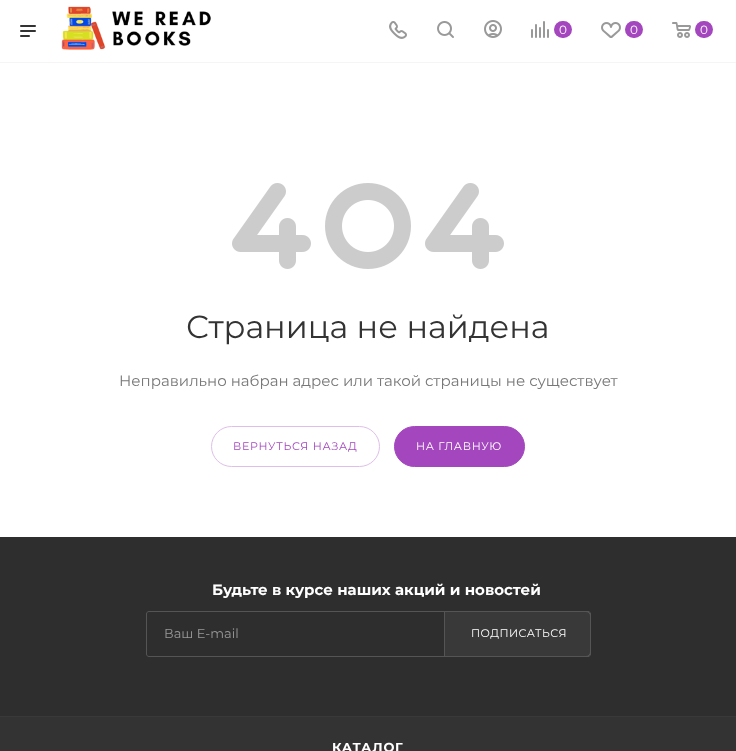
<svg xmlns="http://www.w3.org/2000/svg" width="736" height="751">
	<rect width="100%" height="100%" fill="#FFFFFF" />
	<rect x="0" y="62" width="736" height="1" fill="#F5F5F5" />
	<image x="20" y="25" width="16" height="12" href="assets/img1.png" />
	<image x="61" y="6" width="150" height="44" href="assets/img2.png" />
	<image x="389" y="21" width="18" height="18" href="assets/img3.png" />
	<image x="437" y="21" width="17" height="17" href="assets/img4.png" />
	<image x="484" y="20" width="18" height="18" href="assets/img5.png" />
	<image x="531" y="21" width="18" height="17" href="assets/img6.png" />
	<rect x="554" y="21" width="18" height="17" rx="8.5" fill="#A447BF" />
	<text x="559" y="34" font-family="Montserrat" font-size="12" fill="#FFFFFF">0</text>
	<image x="601" y="22" width="20" height="16" href="assets/img7.png" />
	<rect x="625" y="21" width="18" height="17" rx="8.5" fill="#A447BF" />
	<text x="630" y="34" font-family="Montserrat" font-size="12" fill="#FFFFFF">0</text>
	<image x="672" y="22" width="19" height="16" href="assets/img8.png" />
	<rect x="695" y="21" width="18" height="17" rx="8.5" fill="#A447BF" />
	<text x="700" y="34" font-family="Montserrat" font-size="12" fill="#FFFFFF">0</text>
	<image x="232" y="183" width="272" height="86" href="assets/img9.png" />
	<text x="186" y="338" font-family="Montserrat" font-size="32" fill="#333333">Страница не найдена</text>
	<text x="119" y="386" font-family="Montserrat" font-size="15" fill="#777777">Неправильно набран адрес или такой страницы не существует</text>
	<rect x="211.5" y="426.5" width="168" height="40" rx="20" fill="none" stroke="#DFBFE9" />
	<text x="233" y="450" font-family="Montserrat" font-size="11" letter-spacing="0.75" fill="#A447BF">ВЕРНУТЬСЯ НАЗАД</text>
	<rect x="394.5" y="426.5" width="130" height="40" rx="20" fill="#A447BF" stroke="#A447BF" />
	<text x="416" y="450" font-family="Montserrat" font-size="11" letter-spacing="0.75" fill="#FFFFFF">НА ГЛАВНУЮ</text>
	<rect x="0" y="537" width="736" height="179" fill="#2E2E2E" />
	<rect x="0" y="716" width="736" height="1" fill="#37393B" />
	<text x="212" y="595" font-family="Montserrat" font-size="15" font-weight="700" fill="#FFFFFF">Будьте в курсе наших акций и новостей</text>
	<path d="M149 611.5H586C588.5 611.5 590.5 613.5 590.5 616V652C590.5 654.5 588.5 656.5 586 656.5H149C147.5 656.5 146.5 655.5 146.5 654V614C146.5 612.5 147.5 611.5 149 611.5Z" fill="none" stroke="#555555" />
	<text x="164" y="638" font-family="Montserrat" font-size="13" fill="#999999">Ваш E-mail</text>
	<path d="M444.5 611.5H588C589.5 611.5 590.5 612.5 590.5 614V654C590.5 655.5 589.5 656.5 588 656.5H444.5Z" fill="#686A6E" fill-opacity="0.2" stroke="#555555" />
	<text x="471" y="637" font-family="Montserrat" font-size="11" letter-spacing="0.5" fill="#FFFFFF">ПОДПИСАТЬСЯ</text>
	<rect x="0" y="717" width="736" height="34" fill="#333333" />
	<text x="332" y="752" font-family="Montserrat" font-size="13" font-weight="700" letter-spacing="0.75" fill="#FFFFFF">КАТАЛОГ</text>
</svg>
